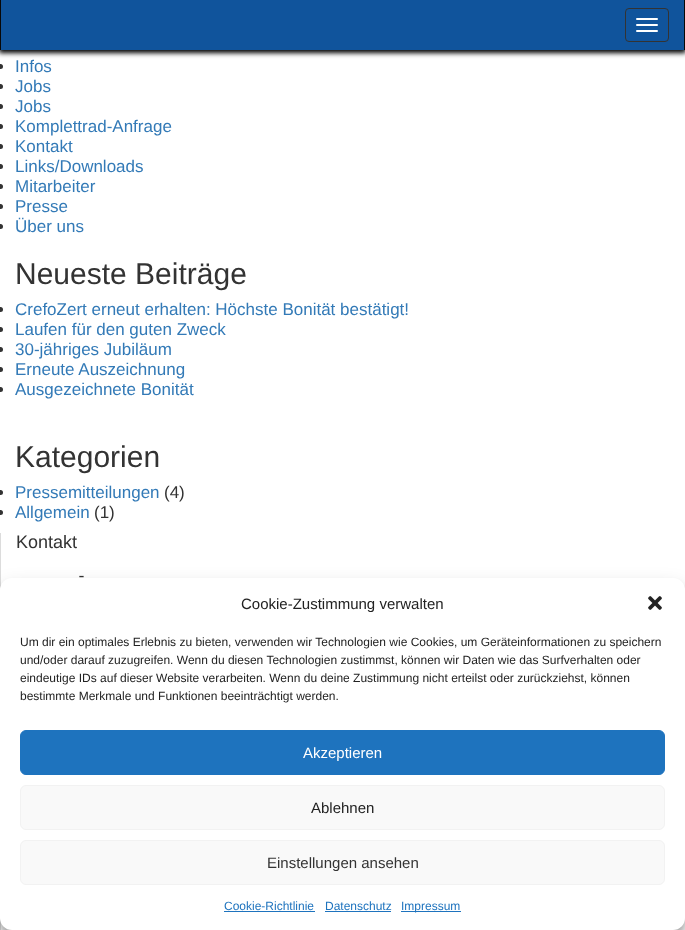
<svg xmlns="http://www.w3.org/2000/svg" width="685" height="930">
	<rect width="100%" height="100%" fill="#FFFFFF" />
	<rect x="-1" y="1" width="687" height="52" fill="#000000" filter="blur(2.5px)" />
	<rect x="1" y="0" width="683" height="50" fill="#10549C" />
	<rect x="684" y="0" width="1" height="50" fill="#080808" />
	<rect x="0" y="0" width="1" height="50" fill="#080808" />
	<rect x="625.5" y="8.5" width="43" height="33" rx="3.5" fill="none" stroke="#333333" />
	<rect x="636" y="18" width="22" height="2" rx="1" fill="#FFFFFF" />
	<rect x="636" y="24" width="22" height="2" rx="1" fill="#FFFFFF" />
	<rect x="636" y="30" width="22" height="2" rx="1" fill="#FFFFFF" />
	<circle cx="0.5" cy="66.5" r="2.5" fill="#333333" />
	<text x="15" y="72" font-family="Liberation Sans" font-size="17" fill="#337AB7">Infos</text>
	<circle cx="0.5" cy="86.5" r="2.5" fill="#333333" />
	<text x="15" y="92" font-family="Liberation Sans" font-size="17" fill="#337AB7">Jobs</text>
	<circle cx="0.5" cy="106.5" r="2.5" fill="#333333" />
	<text x="15" y="112" font-family="Liberation Sans" font-size="17" fill="#337AB7">Jobs</text>
	<circle cx="0.5" cy="126.5" r="2.5" fill="#333333" />
	<text x="15" y="132" font-family="Liberation Sans" font-size="17" fill="#337AB7">Komplettrad-Anfrage</text>
	<circle cx="0.5" cy="146.5" r="2.5" fill="#333333" />
	<text x="15" y="152" font-family="Liberation Sans" font-size="17" fill="#337AB7">Kontakt</text>
	<circle cx="0.5" cy="166.5" r="2.5" fill="#333333" />
	<text x="15" y="172" font-family="Liberation Sans" font-size="17" fill="#337AB7">Links/Downloads</text>
	<circle cx="0.5" cy="186.5" r="2.5" fill="#333333" />
	<text x="15" y="192" font-family="Liberation Sans" font-size="17" fill="#337AB7">Mitarbeiter</text>
	<circle cx="0.5" cy="206.5" r="2.5" fill="#333333" />
	<text x="15" y="212" font-family="Liberation Sans" font-size="17" fill="#337AB7">Presse</text>
	<circle cx="0.5" cy="226.5" r="2.5" fill="#333333" />
	<text x="15" y="232" font-family="Liberation Sans" font-size="17" fill="#337AB7">Über uns</text>
	<text x="15" y="284" font-family="Liberation Sans" font-size="30" fill="#333333">Neueste Beiträge</text>
	<circle cx="0.5" cy="309.5" r="2.5" fill="#333333" />
	<text x="15" y="315" font-family="Liberation Sans" font-size="17" fill="#337AB7">CrefoZert erneut erhalten: Höchste Bonität bestätigt!</text>
	<circle cx="0.5" cy="329.5" r="2.5" fill="#333333" />
	<text x="15" y="335" font-family="Liberation Sans" font-size="17" fill="#337AB7">Laufen für den guten Zweck</text>
	<circle cx="0.5" cy="349.5" r="2.5" fill="#333333" />
	<text x="15" y="355" font-family="Liberation Sans" font-size="17" fill="#337AB7">30-jähriges Jubiläum</text>
	<circle cx="0.5" cy="369.5" r="2.5" fill="#333333" />
	<text x="15" y="375" font-family="Liberation Sans" font-size="17" fill="#337AB7">Erneute Auszeichnung</text>
	<circle cx="0.5" cy="389.5" r="2.5" fill="#333333" />
	<text x="15" y="395" font-family="Liberation Sans" font-size="17" fill="#337AB7">Ausgezeichnete Bonität</text>
	<text x="15" y="467" font-family="Liberation Sans" font-size="30" fill="#333333">Kategorien</text>
	<circle cx="0.5" cy="492.5" r="2.5" fill="#333333" />
	<text x="15" y="498" font-family="Liberation Sans" font-size="17" fill="#337AB7">Pressemitteilungen</text>
	<text x="164" y="498" font-family="Liberation Sans" font-size="17" fill="#333333">(4)</text>
	<circle cx="0.5" cy="512.5" r="2.5" fill="#333333" />
	<text x="15" y="518" font-family="Liberation Sans" font-size="17" fill="#337AB7">Allgemein</text>
	<text x="94" y="518" font-family="Liberation Sans" font-size="17" fill="#333333">(1)</text>
	<rect x="0" y="533" width="1" height="397" fill="#DCDCDC" />
	<text x="16" y="548" font-family="Liberation Sans" font-size="18" fill="#333333">Kontakt</text>
	<text x="79" y="582" font-family="Roboto" font-size="18" fill="#333333">-</text>
	<rect x="0" y="584" width="685" height="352" rx="12" fill="#000000" fill-opacity="0.23" filter="blur(3px)" />
	<rect x="0" y="588" width="685" height="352" rx="12" fill="#000000" fill-opacity="0.19" filter="blur(10px)" />
	<rect x="0" y="578" width="685" height="352" rx="12" fill="#FFFFFF" />
	<text x="241" y="609" font-family="Liberation Sans" font-size="15" fill="#222222">Cookie-Zustimmung verwalten</text>
	<image x="648" y="596" width="14" height="14" href="assets/img1.png" />
	<g font-family="Liberation Sans" font-size="12" fill="#222222">
		<text x="20" y="646">Um dir ein optimales Erlebnis zu bieten, verwenden wir Technologien wie Cookies, um Geräteinformationen zu speichern</text>
		<text x="20" y="664">und/oder darauf zuzugreifen. Wenn du diesen Technologien zustimmst, können wir Daten wie das Surfverhalten oder</text>
		<text x="20" y="682">eindeutige IDs auf dieser Website verarbeiten. Wenn du deine Zustimmung nicht erteilst oder zurückziehst, können</text>
		<text x="20" y="700">bestimmte Merkmale und Funktionen beeinträchtigt werden.</text>
	</g>
	<rect x="20.5" y="730.5" width="644" height="44" rx="5.5" fill="#1E73BE" stroke="#1E73BE" />
	<text x="303" y="758" font-family="Liberation Sans" font-size="15" fill="#FFFFFF">Akzeptieren</text>
	<rect x="20.5" y="785.5" width="644" height="44" rx="5.5" fill="#F9F9F9" stroke="#F2F2F2" />
	<text x="311" y="813" font-family="Liberation Sans" font-size="15" fill="#222222">Ablehnen</text>
	<rect x="20.5" y="840.5" width="644" height="44" rx="5.5" fill="#F9F9F9" stroke="#F2F2F2" />
	<text x="267" y="868" font-family="Liberation Sans" font-size="15" fill="#333333">Einstellungen ansehen</text>
	<text x="224" y="910" font-family="Liberation Sans" font-size="12" fill="#1E73BE">Cookie-Richtlinie</text>
	<rect x="224" y="911" width="91" height="1" fill="#1E73BE" />
	<text x="325" y="910" font-family="Liberation Sans" font-size="12" fill="#1E73BE">Datenschutz</text>
	<rect x="325" y="911" width="66" height="1" fill="#1E73BE" />
	<rect x="401" y="911" width="60" height="1" fill="#1E73BE" />
	<text x="401" y="910" font-family="Liberation Sans" font-size="12" fill="#1E73BE">Impressum</text>
</svg>
